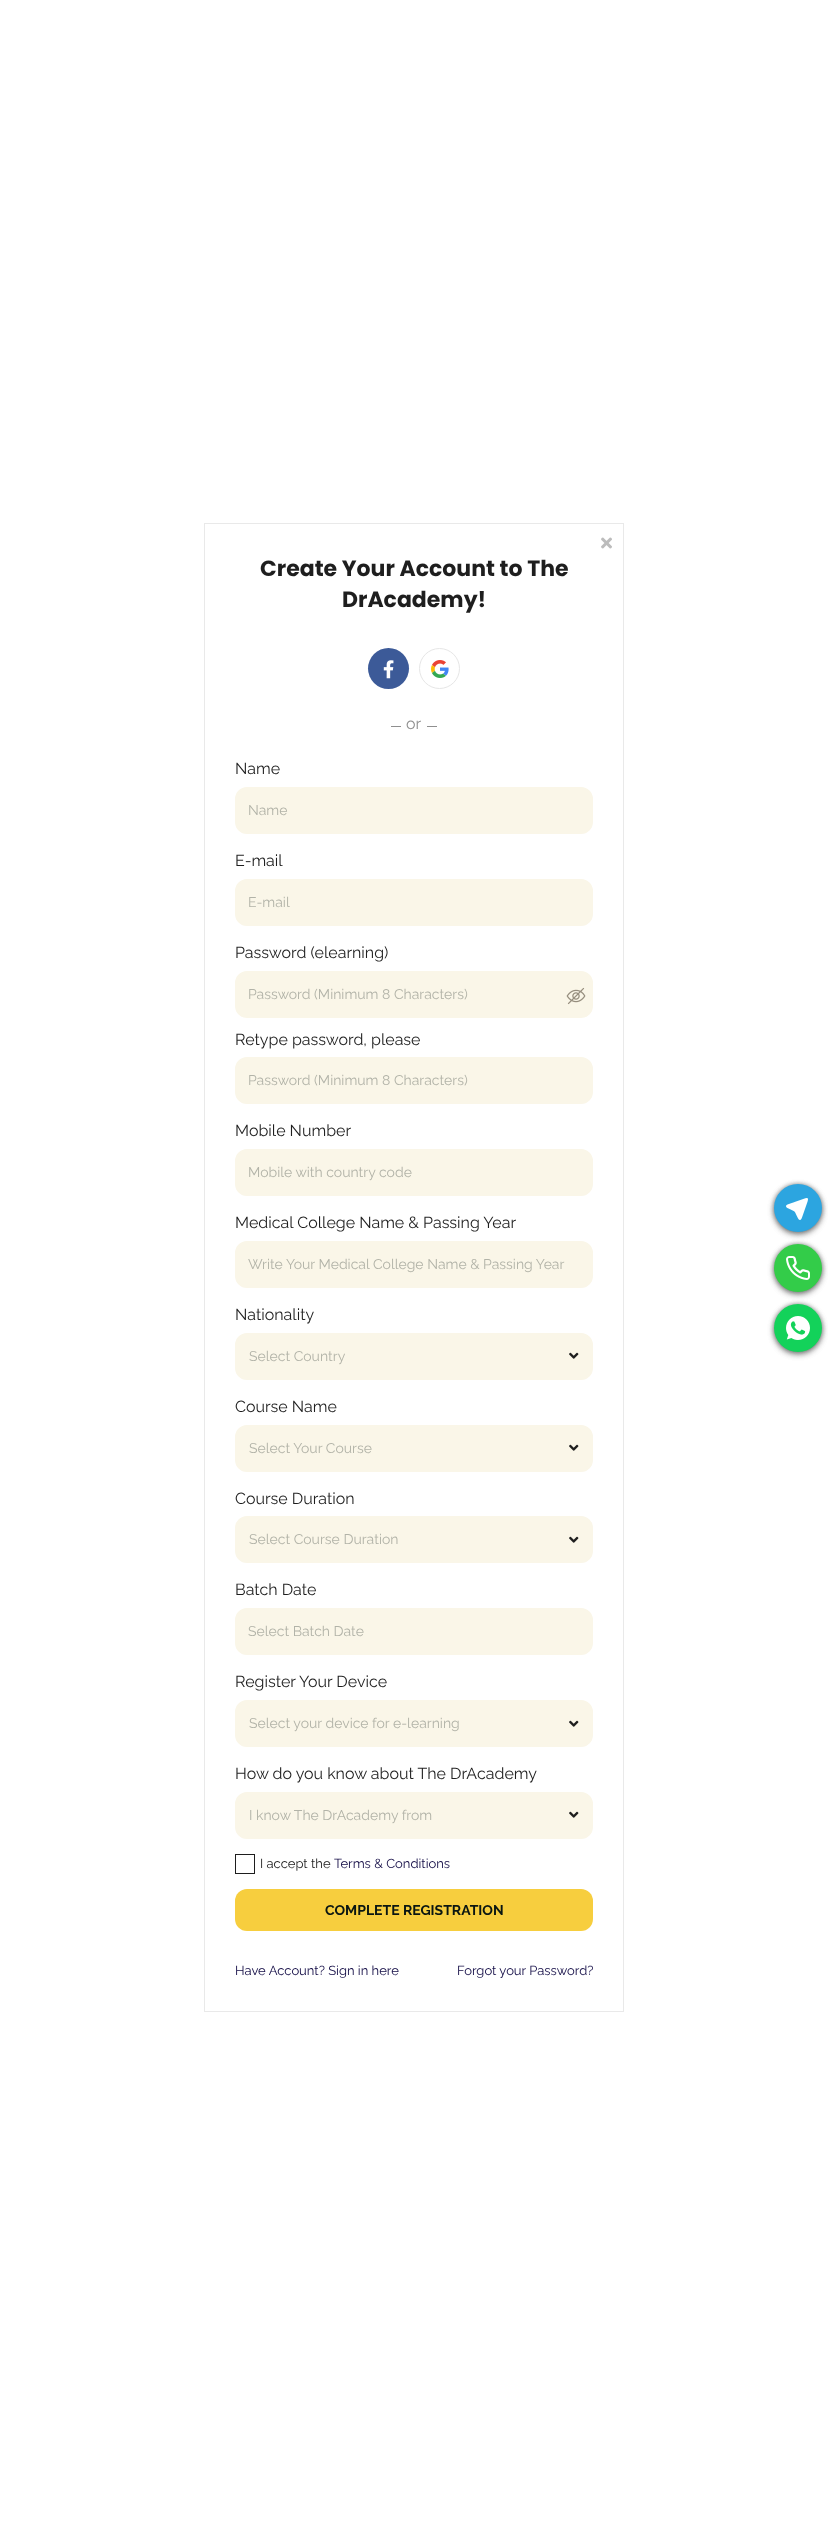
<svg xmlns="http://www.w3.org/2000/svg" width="828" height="2535">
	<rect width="100%" height="100%" fill="#FFFFFF" />
	<rect x="204.5" y="523.5" width="419" height="1488" fill="none" stroke="#E9E9E9" />
	<image x="601" y="537" width="11" height="12" href="assets/img1.png" />
	<g font-family="Poppins" font-size="22" font-weight="700" fill="#1E1E1E">
		<text x="260" y="576">Create Your Account to The</text>
		<text x="342" y="607">DrAcademy!</text>
	</g>
	<circle cx="388.5" cy="668.5" r="20.5" fill="#3C5A98" />
	<image x="383" y="660" width="11" height="19" href="assets/img2.png" />
	<circle cx="439.5" cy="668.5" r="20" fill="none" stroke="#E6E6E6" />
	<image x="431" y="660" width="18" height="18" href="assets/img3.png" />
	<rect x="391" y="726" width="10" height="1" fill="#8F8F8F" />
	<text x="406" y="729" font-family="Raleway" font-size="16" fill="#8F8F8F">or</text>
	<rect x="427" y="726" width="10" height="1" fill="#8F8F8F" />
	<text x="235" y="774" font-family="Raleway" font-size="16" fill="#1E1E1E">Name</text>
	<rect x="236" y="788" width="356" height="45" rx="11" fill="#FAF6E8" stroke="#FAF6E8" stroke-width="2" />
	<text x="248" y="815" font-family="Raleway" font-size="14" fill="#B2B3A8">Name</text>
	<text x="235" y="866" font-family="Raleway" font-size="16" fill="#1E1E1E">E-mail</text>
	<rect x="236" y="880" width="356" height="45" rx="11" fill="#FAF6E8" stroke="#FAF6E8" stroke-width="2" />
	<text x="248" y="907" font-family="Raleway" font-size="14" fill="#B2B3A8">E-mail</text>
	<text x="235" y="958" font-family="Raleway" font-size="16" fill="#1E1E1E">Password (elearning)</text>
	<rect x="236" y="972" width="356" height="45" rx="11" fill="#FAF6E8" stroke="#FAF6E8" stroke-width="2" />
	<text x="248" y="999" font-family="Raleway" font-size="14" fill="#B2B3A8">Password (Minimum 8 Characters)</text>
	<image x="566" y="987" width="20" height="18" href="assets/img4.png" />
	<text x="235" y="1045" font-family="Raleway" font-size="16" fill="#1E1E1E">Retype password, please</text>
	<rect x="236" y="1058" width="356" height="45" rx="11" fill="#FAF6E8" stroke="#FAF6E8" stroke-width="2" />
	<text x="248" y="1085" font-family="Raleway" font-size="14" fill="#B2B3A8">Password (Minimum 8 Characters)</text>
	<text x="235" y="1136" font-family="Raleway" font-size="16" fill="#1E1E1E">Mobile Number</text>
	<rect x="236" y="1150" width="356" height="45" rx="11" fill="#FAF6E8" stroke="#FAF6E8" stroke-width="2" />
	<text x="248" y="1177" font-family="Raleway" font-size="14" fill="#B2B3A8">Mobile with country code</text>
	<text x="235" y="1228" font-family="Raleway" font-size="16" fill="#1E1E1E">Medical College Name &amp; Passing Year</text>
	<rect x="236" y="1242" width="356" height="45" rx="11" fill="#FAF6E8" stroke="#FAF6E8" stroke-width="2" />
	<text x="248" y="1269" font-family="Raleway" font-size="14" fill="#B2B3A8">Write Your Medical College Name &amp; Passing Year</text>
	<text x="235" y="1320" font-family="Raleway" font-size="16" fill="#1E1E1E">Nationality</text>
	<rect x="236" y="1334" width="356" height="45" rx="11" fill="#FAF6E8" stroke="#FAF6E8" stroke-width="2" />
	<text x="249" y="1361" font-family="Raleway" font-size="14" fill="#B2B3A8">Select Country</text>
	<image x="569" y="1352" width="10" height="7" href="assets/img5.png" />
	<text x="235" y="1412" font-family="Raleway" font-size="16" fill="#1E1E1E">Course Name</text>
	<rect x="236" y="1426" width="356" height="45" rx="11" fill="#FAF6E8" stroke="#FAF6E8" stroke-width="2" />
	<text x="249" y="1453" font-family="Raleway" font-size="14" fill="#B2B3A8">Select Your Course</text>
	<image x="569" y="1444" width="10" height="7" href="assets/img5.png" />
	<text x="235" y="1504" font-family="Raleway" font-size="16" fill="#1E1E1E">Course Duration</text>
	<rect x="236" y="1517" width="356" height="45" rx="11" fill="#FAF6E8" stroke="#FAF6E8" stroke-width="2" />
	<text x="249" y="1544" font-family="Raleway" font-size="14" fill="#B2B3A8">Select Course Duration</text>
	<image x="569" y="1536" width="10" height="7" href="assets/img5.png" />
	<text x="235" y="1595" font-family="Raleway" font-size="16" fill="#1E1E1E">Batch Date</text>
	<rect x="236" y="1609" width="356" height="45" rx="11" fill="#FAF6E8" stroke="#FAF6E8" stroke-width="2" />
	<text x="248" y="1636" font-family="Raleway" font-size="14" fill="#B2B3A8">Select Batch Date</text>
	<text x="235" y="1687" font-family="Raleway" font-size="16" fill="#1E1E1E">Register Your Device</text>
	<rect x="236" y="1701" width="356" height="45" rx="11" fill="#FAF6E8" stroke="#FAF6E8" stroke-width="2" />
	<text x="249" y="1728" font-family="Raleway" font-size="14" fill="#B2B3A8">Select your device for e-learning</text>
	<image x="569" y="1720" width="10" height="7" href="assets/img5.png" />
	<text x="235" y="1779" font-family="Raleway" font-size="16" fill="#1E1E1E">How do you know about The DrAcademy</text>
	<rect x="236" y="1793" width="356" height="45" rx="11" fill="#FAF6E8" stroke="#FAF6E8" stroke-width="2" />
	<text x="249" y="1820" font-family="Raleway" font-size="14" fill="#B2B3A8">I know The DrAcademy from</text>
	<image x="569" y="1811" width="10" height="7" href="assets/img5.png" />
	<rect x="235.5" y="1854.5" width="19" height="19" fill="none" stroke="#1E1E1E" />
	<text x="260" y="1868" font-family="Raleway" font-size="13" fill="#1E1E1E">I accept the</text>
	<text x="334" y="1868" font-family="Raleway" font-size="13" fill="#110A44">Terms &amp; Conditions</text>
	<rect x="235" y="1889" width="358" height="42" rx="12" fill="#F7CE3E" />
	<text x="325" y="1915" font-family="Raleway" font-size="14" font-weight="700" fill="#0A1612">COMPLETE REGISTRATION</text>
	<g font-family="Raleway" font-size="13" fill="#110A44">
		<text x="235" y="1975">Have Account? Sign in here</text>
		<text x="457" y="1975">Forgot your Password?</text>
	</g>
	<rect x="774" y="1186" width="48" height="48" rx="24" fill="#000000" fill-opacity="0.28" filter="blur(3px)" />
	<rect x="774" y="1184" width="48" height="48" rx="24" fill="#000000" fill-opacity="0.14" filter="blur(2px)" />
	<rect x="774" y="1246" width="48" height="48" rx="24" fill="#000000" fill-opacity="0.28" filter="blur(3px)" />
	<rect x="774" y="1244" width="48" height="48" rx="24" fill="#000000" fill-opacity="0.14" filter="blur(2px)" />
	<rect x="774" y="1306" width="48" height="48" rx="24" fill="#000000" fill-opacity="0.28" filter="blur(3px)" />
	<rect x="774" y="1304" width="48" height="48" rx="24" fill="#000000" fill-opacity="0.14" filter="blur(2px)" />
	<rect x="774" y="1186" width="48" height="48" rx="24" fill="#000000" fill-opacity="0.28" filter="blur(3px)" />
	<rect x="774" y="1184" width="48" height="48" rx="24" fill="#000000" fill-opacity="0.14" filter="blur(2px)" />
	<circle cx="798" cy="1208" r="24" fill="#2CA5E0" />
	<image x="786" y="1198" width="22" height="22" href="assets/img6.png" />
	<rect x="774" y="1246" width="48" height="48" rx="24" fill="#000000" fill-opacity="0.28" filter="blur(3px)" />
	<rect x="774" y="1244" width="48" height="48" rx="24" fill="#000000" fill-opacity="0.14" filter="blur(2px)" />
	<circle cx="798" cy="1268" r="24" fill="#33CC49" />
	<image x="786" y="1256" width="24" height="24" href="assets/img7.png" />
	<rect x="774" y="1306" width="48" height="48" rx="24" fill="#000000" fill-opacity="0.28" filter="blur(3px)" />
	<rect x="774" y="1304" width="48" height="48" rx="24" fill="#000000" fill-opacity="0.14" filter="blur(2px)" />
	<circle cx="798" cy="1328" r="24" fill="#13D25A" />
	<image x="786" y="1316" width="24" height="24" href="assets/img8.png" />
</svg>
